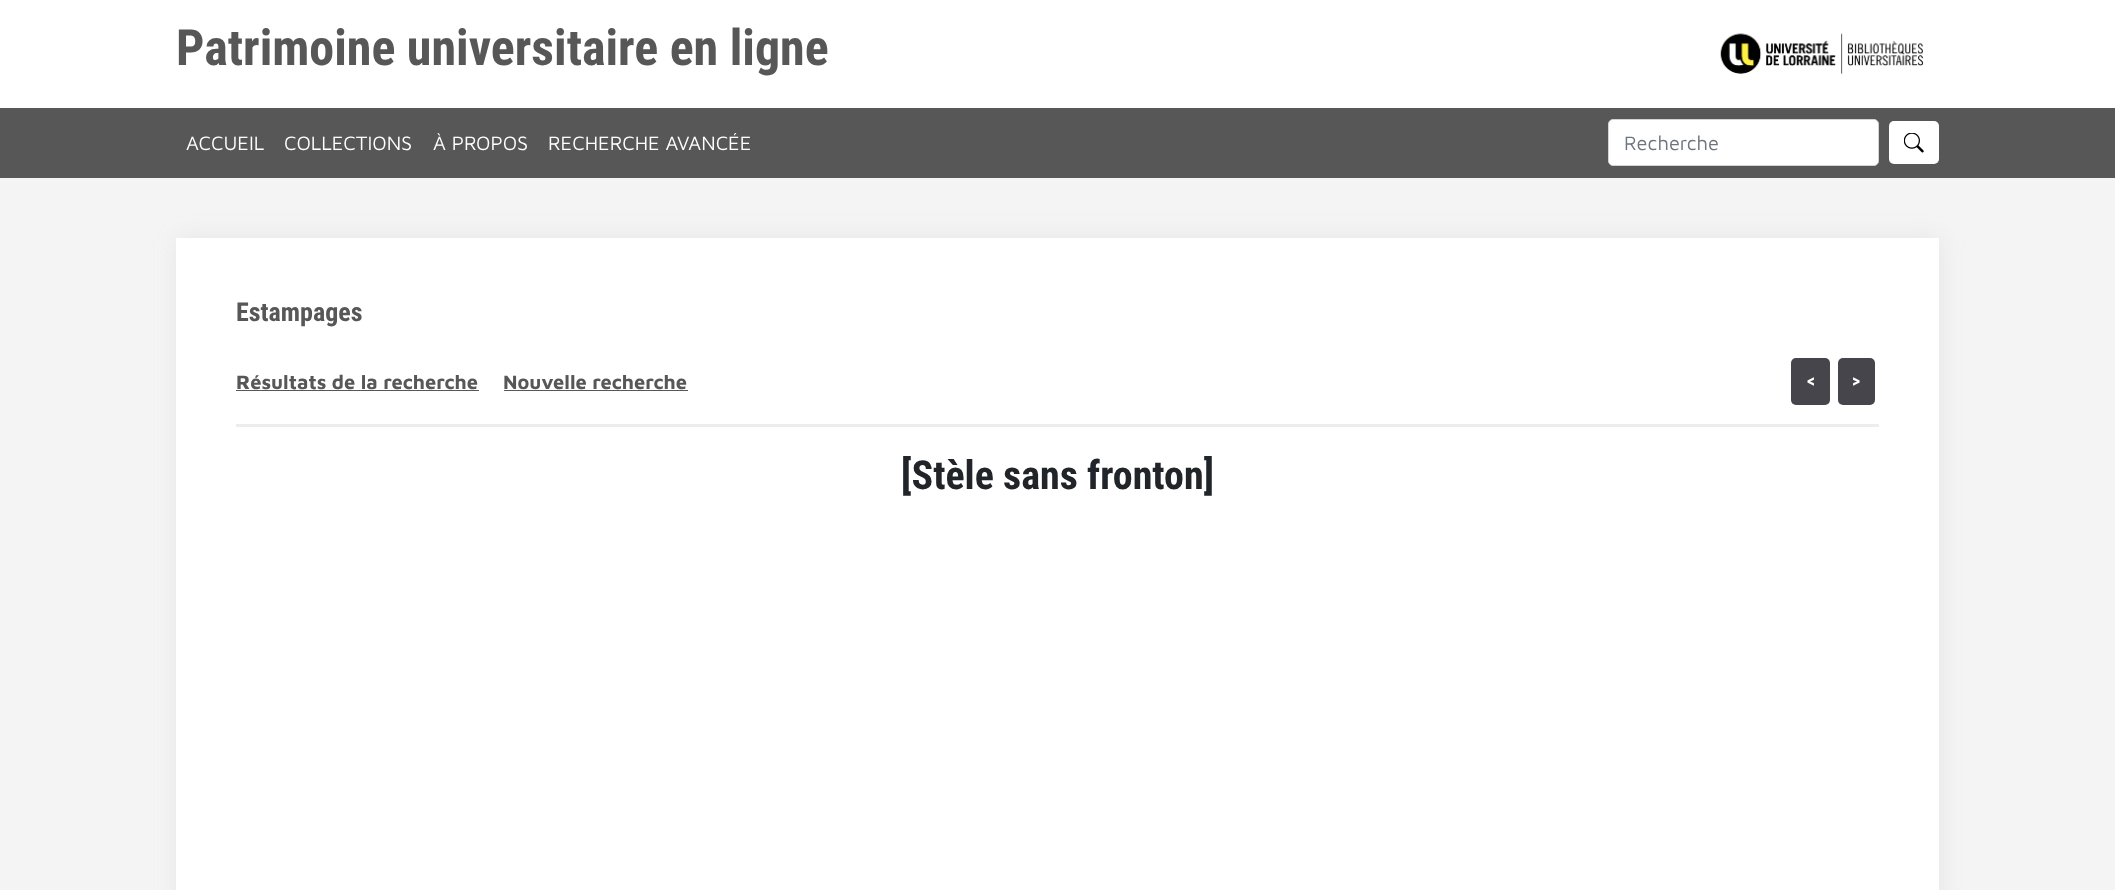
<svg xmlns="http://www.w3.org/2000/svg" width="2115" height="890">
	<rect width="100%" height="100%" fill="#F4F4F4" />
	<rect x="0" y="0" width="2115" height="108" fill="#FFFFFF" />
	<text x="176" y="65" font-family="Roboto Condensed" font-size="50" font-weight="700" fill="#575757">Patrimoine universitaire en ligne</text>
	<image x="1720" y="33" width="204" height="41" href="assets/img1.png" />
	<rect x="0" y="108" width="2115" height="70" fill="#575757" />
	<g font-family="Maven Pro" font-size="20" fill="#FFFFFF">
		<text x="186" y="150">ACCUEIL</text>
		<text x="284" y="150">COLLECTIONS</text>
		<text x="433" y="150">À PROPOS</text>
		<text x="548" y="150">RECHERCHE AVANCÉE</text>
	</g>
	<rect x="1608.5" y="119.5" width="270" height="46" rx="4.5" fill="#FFFFFF" stroke="#CED4DA" />
	<text x="1624" y="150" font-family="Maven Pro" font-size="20" fill="#6C757D">Recherche</text>
	<rect x="1889" y="121" width="50" height="43" rx="5" fill="#FFFFFF" />
	<image x="1904" y="133" width="20" height="20" href="assets/img2.png" />
	<rect x="178" y="239" width="1762" height="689" fill="#A2A2A2" fill-opacity="0.17" filter="blur(12.5px)" />
	<rect x="176" y="238" width="1763" height="652" fill="#FFFFFF" />
	<text x="236" y="321" font-family="Roboto Condensed" font-size="26" font-weight="700" fill="#575757">Estampages</text>
	<rect x="236" y="424" width="1643" height="3" fill="#EDEDED" />
	<text x="236" y="389" font-family="Maven Pro" font-size="20" font-weight="700" fill="#575757">Résultats de la recherche</text>
	<rect x="236" y="390" width="243" height="1" fill="#575757" />
	<text x="503" y="389" font-family="Maven Pro" font-size="20" font-weight="700" fill="#575757">Nouvelle recherche</text>
	<rect x="504" y="390" width="184" height="1" fill="#575757" />
	<rect x="1791" y="358" width="39" height="47" rx="5" fill="#46454B" />
	<text x="1807" y="387" font-family="Roboto Condensed" font-size="18" font-weight="700" fill="#FFFFFF">&lt;</text>
	<rect x="1838" y="358" width="37" height="47" rx="5" fill="#46454B" />
	<text x="1852" y="387" font-family="Roboto Condensed" font-size="18" font-weight="700" fill="#FFFFFF">&gt;</text>
	<text x="901" y="489" font-family="Roboto Condensed" font-size="40" font-weight="700" fill="#212529">[Stèle sans fronton]</text>
</svg>
